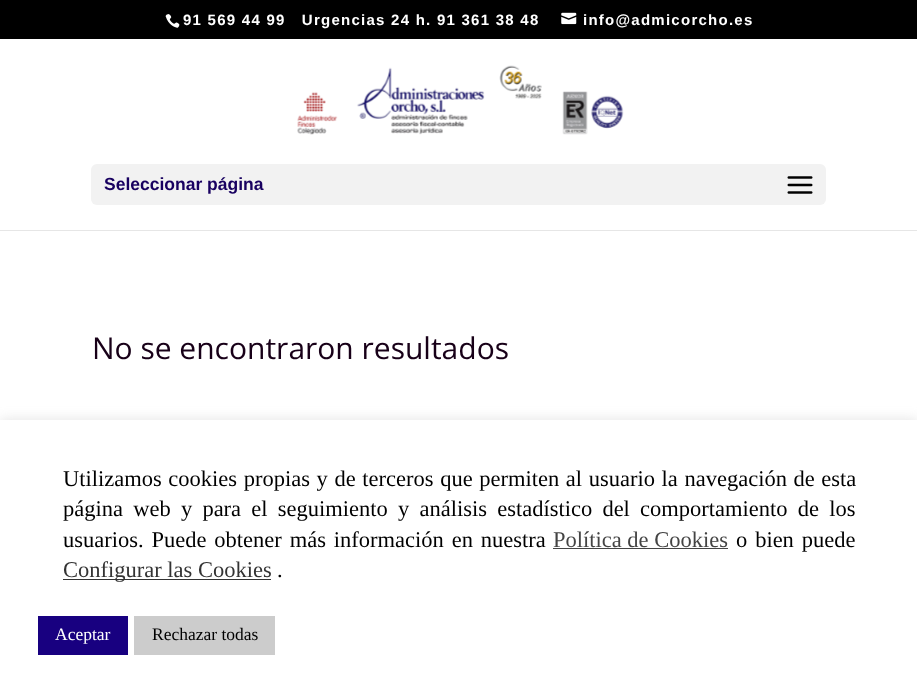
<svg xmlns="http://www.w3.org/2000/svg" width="917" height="692">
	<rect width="100%" height="100%" fill="#FFFFFF" />
	<rect x="0" y="0" width="917" height="39" fill="#000000" />
	<image x="165" y="14" width="15" height="14" href="assets/img1.png" />
	<text x="183" y="25" font-family="Liberation Sans" font-size="15" font-weight="700" letter-spacing="1.25" fill="#FFFFFF" xml:space="preserve">91 569 44 99   Urgencias 24 h. 91 361 38 48</text>
	<image x="561" y="12" width="16" height="13" href="assets/img2.png" />
	<text x="583" y="25" font-family="Liberation Sans" font-size="15" font-weight="700" letter-spacing="1.25" fill="#FFFFFF">info@admicorcho.es</text>
	<path d="M0 230V231H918V40V230Z" fill="#E6E6E6" />
	<image x="297" y="65" width="327" height="70" href="assets/img3.png" />
	<rect x="91" y="164" width="735" height="41" rx="6" fill="#F2F2F2" />
	<text x="104" y="190" font-family="Liberation Sans" font-size="17.5" font-weight="700" fill="#180060">Seleccionar página</text>
	<image x="787" y="176" width="26" height="18" href="assets/img4.png" />
	<text x="92" y="359" font-family="Open Sans" font-size="30" fill="#180018">No se encontraron resultados</text>
	<rect x="0" y="419" width="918" height="272" fill="#ACABAB" fill-opacity="0.3" filter="blur(6px)" />
	<rect x="0" y="420" width="917" height="272" fill="#FFFFFF" />
	<g font-family="Liberation Serif" font-size="22.5" fill="#000000">
		<text x="63" y="486" word-spacing="1">Utilizamos cookies propias y de terceros que permiten al usuario la navegación de esta</text>
		<text x="63" y="516" word-spacing="4.6">página web y para el seguimiento y análisis estadístico del comportamiento de los</text>
		<text x="63" y="547" word-spacing="2.25">usuarios. Puede obtener más información en nuestra</text>
	</g>
	<text x="553" y="547" font-family="Liberation Serif" font-size="22.5" fill="#444444">Política de Cookies</text>
	<rect x="553" y="548" width="175" height="1" fill="#444444" />
	<text x="736" y="547" word-spacing="2.25" font-family="Liberation Serif" font-size="22.5" fill="#000000">o bien puede</text>
	<rect x="63" y="579" width="208" height="1" fill="#333333" />
	<text x="63" y="577" font-family="Liberation Serif" font-size="22.5" fill="#333333">Configurar las Cookies</text>
	<text x="277" y="577" font-family="Liberation Serif" font-size="22.5" fill="#000000">.</text>
	<rect x="38" y="616" width="90" height="39" fill="#180080" />
	<text x="55" y="640" font-family="Liberation Serif" font-size="17.5" fill="#FFFFFF">Aceptar</text>
	<rect x="134" y="616" width="141" height="39" fill="#CCCCCC" />
	<text x="152" y="640" font-family="Liberation Serif" font-size="17.5" fill="#000000">Rechazar todas</text>
</svg>
